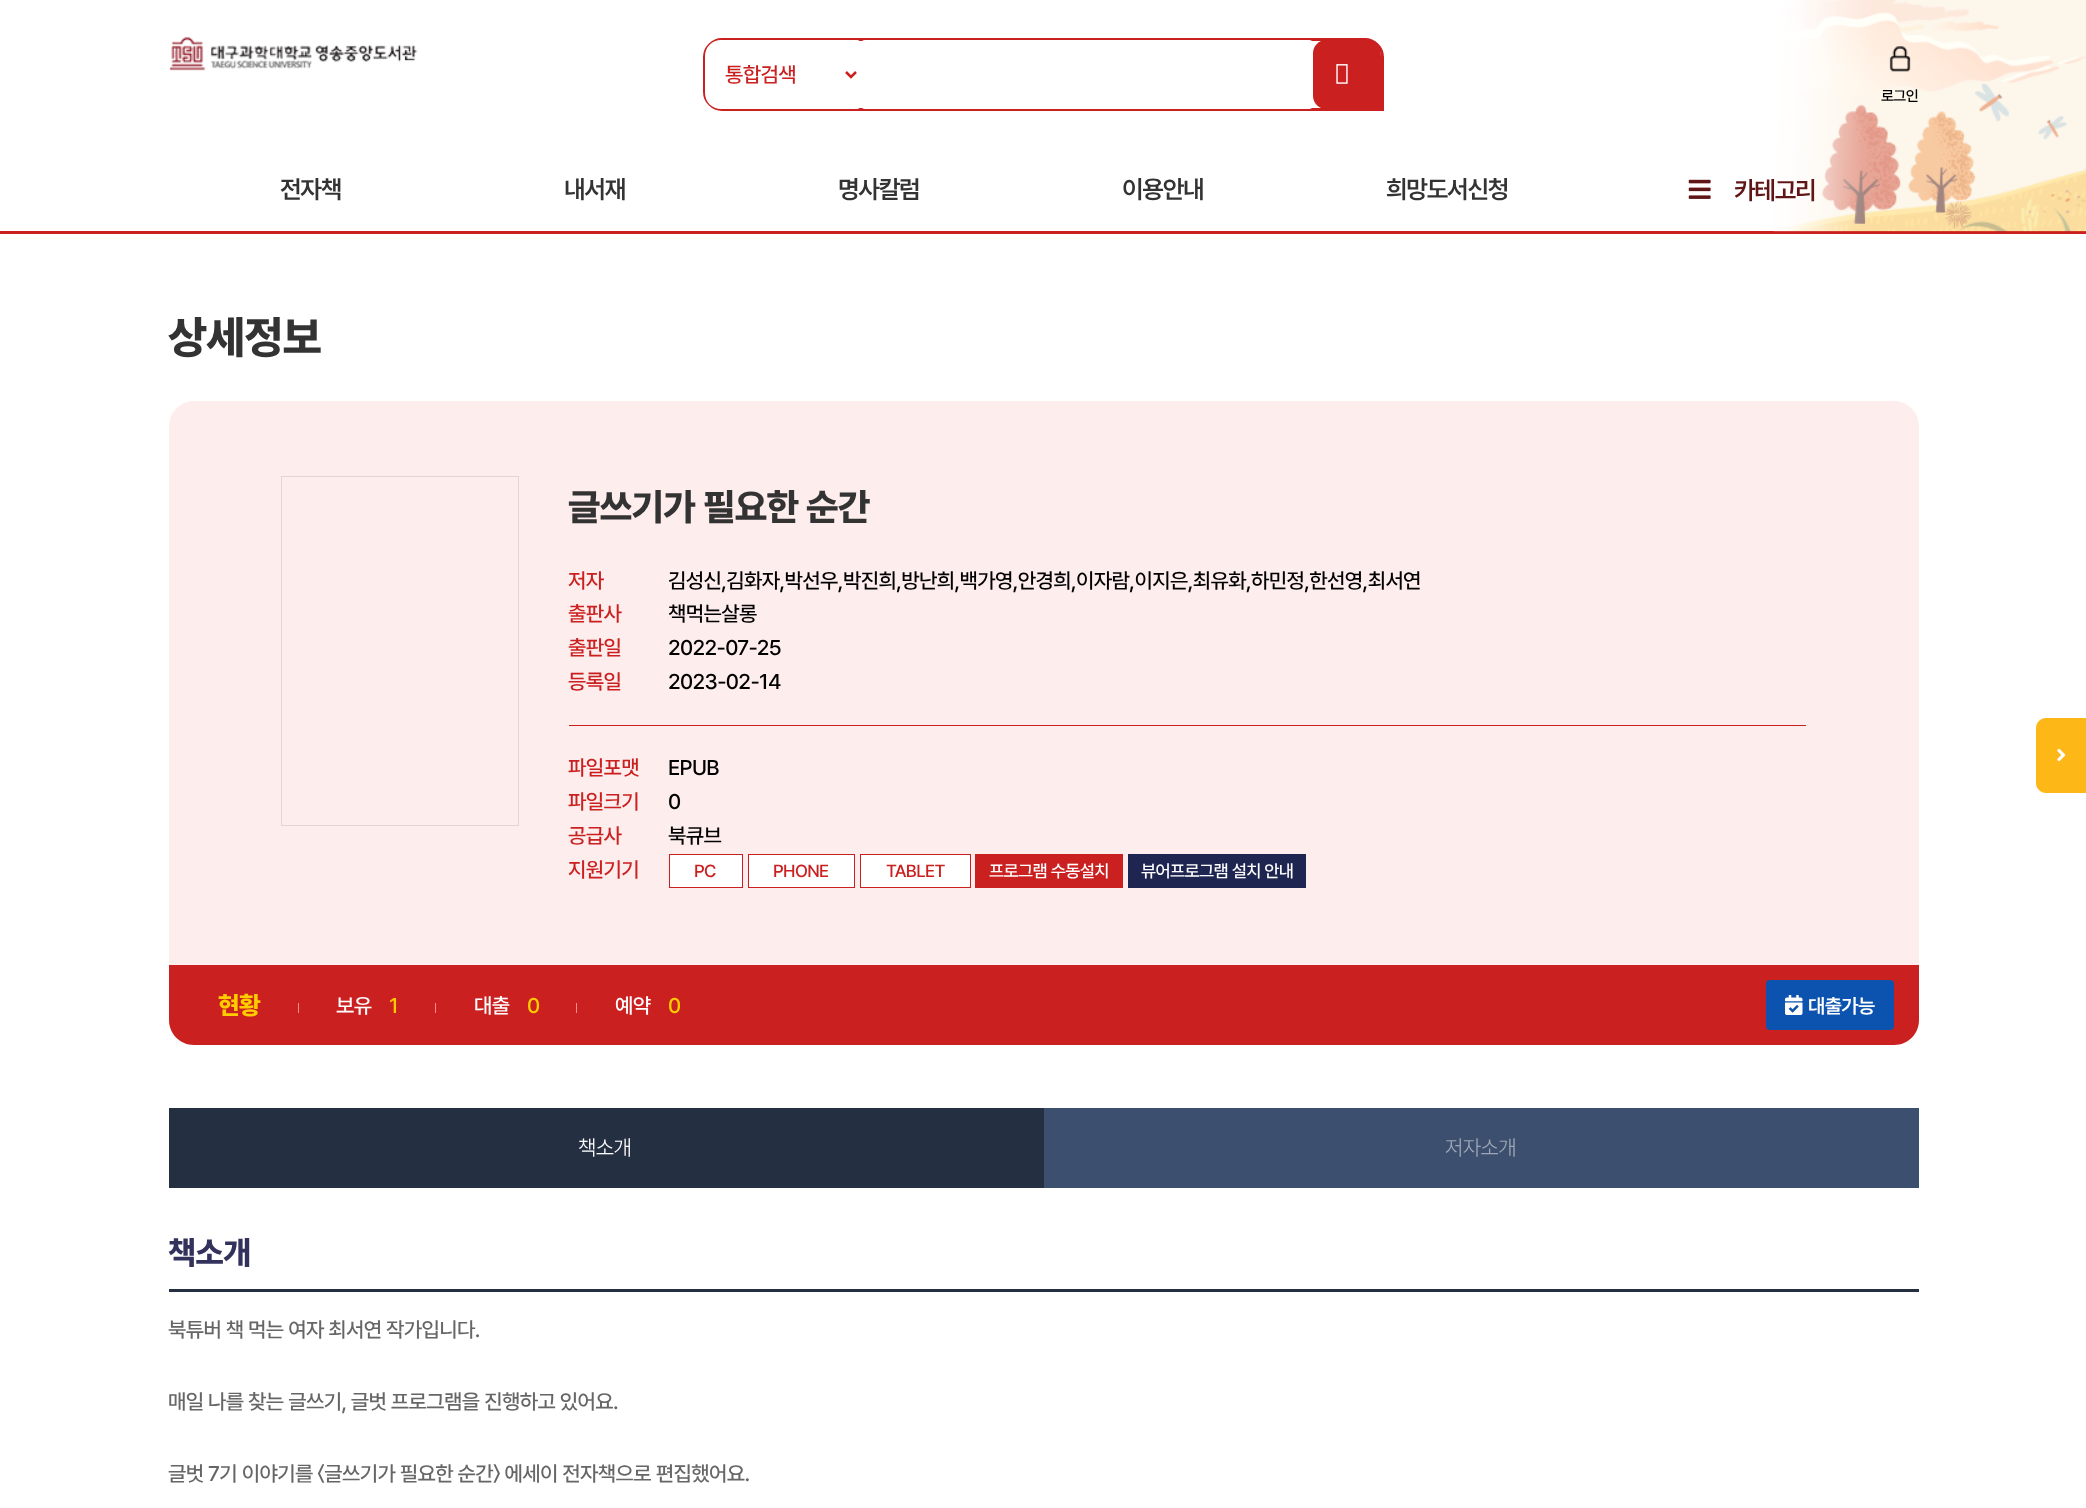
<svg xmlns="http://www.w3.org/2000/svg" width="2086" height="1508">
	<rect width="100%" height="100%" fill="#FFFFFF" />
	<image x="169" y="36" width="249" height="35" href="assets/img1.png" />
	<path d="M722 39.5H1365C1374.5 39.5 1382.5 47.5 1382.5 57V109.5H722C712.5 109.5 704.5 101.5 704.5 92V57C704.5 47.5 712.5 39.5 722 39.5Z" fill="none" stroke="#CB2020" stroke-width="3" />
	<path d="M721 40H857C859 40 861 42 861 44V105C861 107 859 109 857 109H721C712 109 705 102 705 93V56C705 47 712 40 721 40Z" fill="#FFFFFF" />
	<path d="M846 72L851 77L856 72" fill="none" stroke="#CB2020" stroke-width="2.5" />
	<text x="725" y="82" font-family="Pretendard" font-size="21.25" font-weight="500" letter-spacing="-0.62" fill="#CB2020">통합검색</text>
	<rect x="861" y="40" width="452" height="69" rx="4" fill="#FFFFFF" />
	<path d="M1326 40H1365C1374 40 1381 47 1381 56V109H1326C1319 109 1313 103 1313 96V53C1313 46 1319 40 1326 40Z" fill="#CB2020" />
	<image x="1336" y="64" width="12" height="20" href="assets/img2.png" />
	<rect x="0" y="231" width="2086" height="3" fill="#CB2020" />
	<image x="1773" y="0" width="313" height="232" href="assets/img4.png" />
	<image x="1889" y="46" width="22" height="26" href="assets/img3.png" />
	<text x="1881" y="101" font-family="Pretendard" font-size="15" font-weight="500" letter-spacing="-0.62" fill="#000000">로그인</text>
	<g font-family="Pretendard" font-size="25" font-weight="600" letter-spacing="-1.25" fill="#333333">
		<text x="280" y="198">전자책</text>
		<text x="564" y="198">내서재</text>
		<text x="838" y="198">명사칼럼</text>
		<text x="1122" y="198">이용안내</text>
		<text x="1386" y="198">희망도서신청</text>
	</g>
	<image x="1688" y="179" width="23" height="20" href="assets/img5.png" />
	<text x="1734" y="199" font-family="Pretendard" font-size="25" font-weight="600" letter-spacing="-1.25" fill="#601616">카테고리</text>
	<text x="168" y="353" font-family="Pretendard" font-size="45" font-weight="800" letter-spacing="-0.62" fill="#333333">상세정보</text>
	<rect x="169" y="401" width="1750" height="644" rx="25" fill="#FDEDED" />
	<rect x="281.5" y="476.5" width="237" height="349" fill="none" stroke="#E4D5D5" />
	<text x="568" y="520" font-family="Pretendard" font-size="37.5" font-weight="800" letter-spacing="-0.62" fill="#333333">글쓰기가 필요한 순간</text>
	<text x="568" y="588" font-family="Pretendard" font-size="21.25" font-weight="500" letter-spacing="-0.62" fill="#CB2020">저자</text>
	<text x="668" y="588" font-family="Pretendard" font-size="21.25" font-weight="500" letter-spacing="-0.62" fill="#000000">김성신,김화자,박선우,박진희,방난희,백가영,안경희,이자람,이지은,최유화,하민정,한선영,최서연</text>
	<text x="568" y="621" font-family="Pretendard" font-size="21.25" font-weight="500" letter-spacing="-0.62" fill="#CB2020">출판사</text>
	<text x="668" y="621" font-family="Pretendard" font-size="21.25" font-weight="500" letter-spacing="-0.62" fill="#000000">책먹는살롱</text>
	<text x="568" y="655" font-family="Pretendard" font-size="21.25" font-weight="500" letter-spacing="-0.62" fill="#CB2020">출판일</text>
	<text x="668" y="655" font-family="Pretendard" font-size="21.25" font-weight="500" letter-spacing="-0.62" fill="#000000">2022-07-25</text>
	<text x="568" y="689" font-family="Pretendard" font-size="21.25" font-weight="500" letter-spacing="-0.62" fill="#CB2020">등록일</text>
	<text x="668" y="689" font-family="Pretendard" font-size="21.25" font-weight="500" letter-spacing="-0.62" fill="#000000">2023-02-14</text>
	<rect x="569" y="725" width="1237" height="1" fill="#CB2020" />
	<text x="568" y="775" font-family="Pretendard" font-size="21.25" font-weight="500" letter-spacing="-0.62" fill="#CB2020">파일포맷</text>
	<text x="668" y="775" font-family="Pretendard" font-size="21.25" font-weight="500" letter-spacing="-0.62" fill="#000000">EPUB</text>
	<text x="568" y="809" font-family="Pretendard" font-size="21.25" font-weight="500" letter-spacing="-0.62" fill="#CB2020">파일크기</text>
	<text x="668" y="809" font-family="Pretendard" font-size="21.25" font-weight="500" letter-spacing="-0.62" fill="#000000">0</text>
	<text x="568" y="843" font-family="Pretendard" font-size="21.25" font-weight="500" letter-spacing="-0.62" fill="#CB2020">공급사</text>
	<text x="668" y="843" font-family="Pretendard" font-size="21.25" font-weight="500" letter-spacing="-0.62" fill="#000000">북큐브</text>
	<text x="568" y="877" font-family="Pretendard" font-size="21.25" font-weight="500" letter-spacing="-0.62" fill="#CB2020">지원기기</text>
	<rect x="669.5" y="854.5" width="73" height="33" fill="#FFFFFF" stroke="#CB2020" />
	<text x="694" y="877" font-family="Pretendard" font-size="17.5" font-weight="500" letter-spacing="-0.62" fill="#CB2020">PC</text>
	<rect x="748.5" y="854.5" width="106" height="33" fill="#FFFFFF" stroke="#CB2020" />
	<text x="773" y="877" font-family="Pretendard" font-size="17.5" font-weight="500" letter-spacing="-0.62" fill="#CB2020">PHONE</text>
	<rect x="860.5" y="854.5" width="110" height="33" fill="#FFFFFF" stroke="#CB2020" />
	<text x="886" y="877" font-family="Pretendard" font-size="17.5" font-weight="500" letter-spacing="-0.62" fill="#CB2020">TABLET</text>
	<rect x="975" y="854" width="148" height="34" fill="#CB2020" />
	<text x="989" y="877" font-family="Pretendard" font-size="17.5" font-weight="500" letter-spacing="-0.62" fill="#FFFFFF">프로그램 수동설치</text>
	<rect x="1128" y="854" width="178" height="34" fill="#1F2551" />
	<text x="1141" y="877" font-family="Pretendard" font-size="17.5" font-weight="500" letter-spacing="-0.62" fill="#FFFFFF">뷰어프로그램 설치 안내</text>
	<path d="M169 965H1919V1020C1919 1034 1908 1045 1894 1045H194C180 1045 169 1034 169 1020Z" fill="#CB2020" />
	<text x="218" y="1014" font-family="Pretendard" font-size="25" font-weight="800" letter-spacing="-0.62" fill="#FFCC00">현황</text>
	<rect x="298" y="1003" width="1" height="10" fill="#FE8B8B" />
	<text x="336" y="1013" font-family="Pretendard" font-size="21.25" font-weight="500" letter-spacing="-0.62" fill="#FFFFFF">보유</text>
	<text x="389" y="1013" font-family="Pretendard" font-size="21.25" font-weight="500" letter-spacing="-0.62" fill="#FFCC00">1</text>
	<rect x="435" y="1003" width="1" height="10" fill="#FE8B8B" />
	<text x="474" y="1013" font-family="Pretendard" font-size="21.25" font-weight="500" letter-spacing="-0.62" fill="#FFFFFF">대출</text>
	<text x="527" y="1013" font-family="Pretendard" font-size="21.25" font-weight="500" letter-spacing="-0.62" fill="#FFCC00">0</text>
	<rect x="576" y="1003" width="1" height="10" fill="#FE8B8B" />
	<text x="615" y="1013" font-family="Pretendard" font-size="21.25" font-weight="500" letter-spacing="-0.62" fill="#FFFFFF">예약</text>
	<text x="668" y="1013" font-family="Pretendard" font-size="21.25" font-weight="500" letter-spacing="-0.62" fill="#FFCC00">0</text>
	<rect x="1766" y="980" width="128" height="50" rx="4" fill="#0C52AF" />
	<image x="1785" y="995" width="18" height="20" href="assets/img6.png" />
	<text x="1808" y="1013" font-family="Pretendard" font-size="20" font-weight="600" letter-spacing="-0.62" fill="#FFFFFF">대출가능</text>
	<rect x="169" y="1108" width="875" height="80" fill="#242F42" />
	<text x="578" y="1155" font-family="Pretendard" font-size="21.25" font-weight="300" letter-spacing="-0.62" fill="#FFFFFF">책소개</text>
	<rect x="1044" y="1108" width="875" height="80" fill="#3C4F6F" />
	<text x="1445" y="1155" font-family="Pretendard" font-size="21.25" font-weight="300" letter-spacing="-0.62" fill="#9DA6B6">저자소개</text>
	<rect x="169" y="1289" width="1750" height="3" fill="#242F42" />
	<text x="168" y="1264" font-family="Pretendard" font-size="32.5" font-weight="800" letter-spacing="-0.5" fill="#32325D">책소개</text>
	<g font-family="Pretendard" font-size="21.25" font-weight="500" letter-spacing="-0.62" fill="#666666">
		<text x="168" y="1337">북튜버 책 먹는 여자 최서연 작가입니다.</text>
		<text x="168" y="1409">매일 나를 찾는 글쓰기, 글벗 프로그램을 진행하고 있어요.</text>
		<text x="168" y="1481">글벗 7기 이야기를 〈글쓰기가 필요한 순간〉 에세이 전자책으로 편집했어요.</text>
	</g>
	<path d="M2046 718H2086V793H2046C2040.5 793 2036 788.5 2036 783V728C2036 722.5 2040.5 718 2046 718Z" fill="#FDB717" />
	<image x="2057" y="748" width="9" height="14" href="assets/img7.png" />
</svg>
